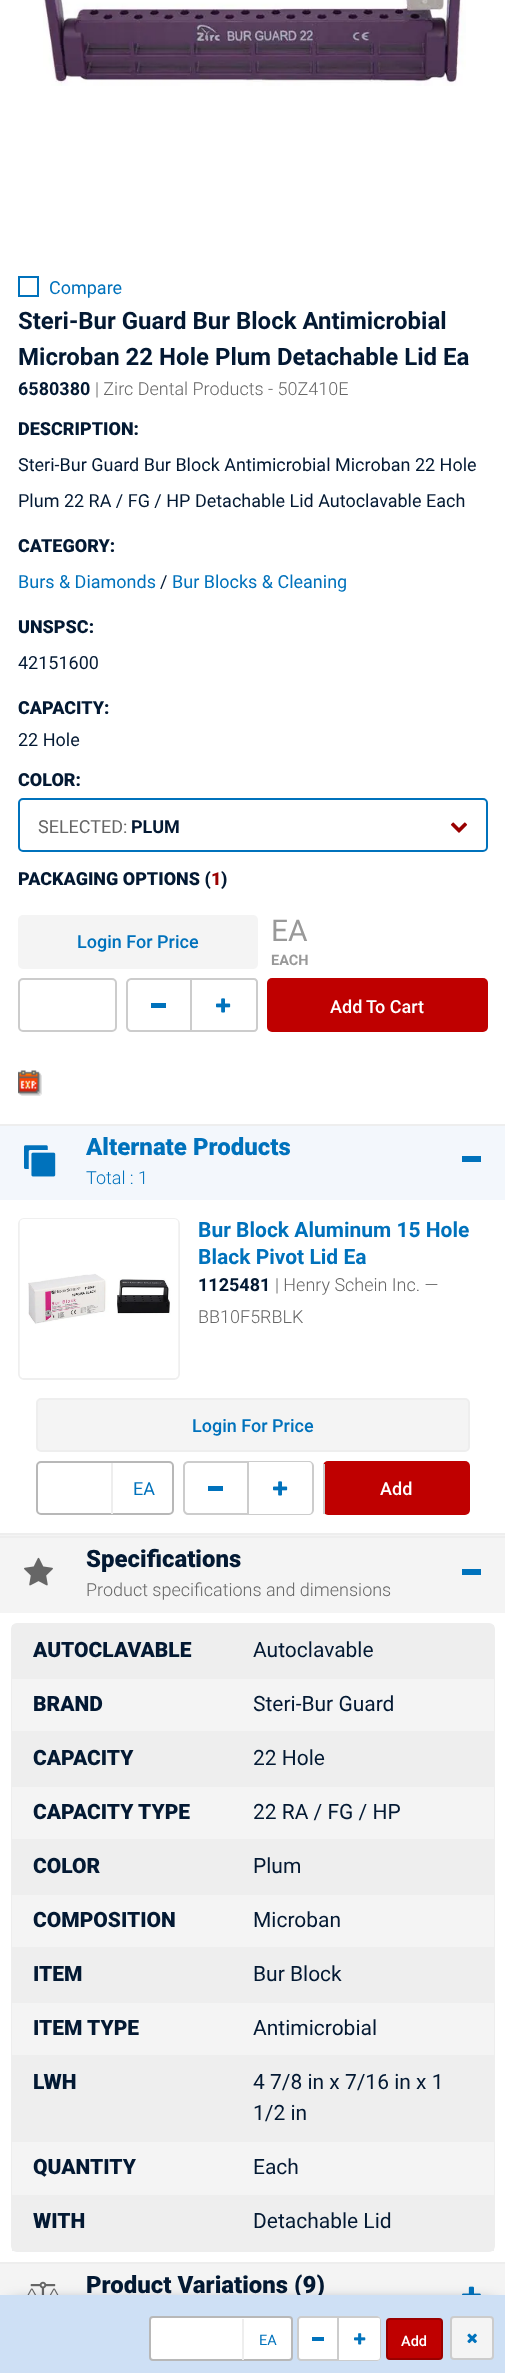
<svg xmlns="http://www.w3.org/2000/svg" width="505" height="2373">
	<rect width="100%" height="100%" fill="#FFFFFF" />
	<image x="43" y="0" width="423" height="86" href="assets/img1.png" />
	<rect x="19" y="277" width="19" height="19" fill="none" stroke="#0072BC" stroke-width="2" />
	<text x="49" y="294" font-family="Roboto" font-size="18" fill="#0072BC">Compare</text>
	<g font-family="Roboto" font-size="24" font-weight="700" fill="#031933">
		<text x="18" y="329">Steri-Bur Guard Bur Block Antimicrobial</text>
		<text x="18" y="365">Microban 22 Hole Plum Detachable Lid Ea</text>
	</g>
	<text x="18" y="395" font-family="Roboto" font-size="18" font-weight="700" fill="#031933">6580380</text>
	<text x="95" y="395" font-family="Roboto" font-size="18" font-weight="300" fill="#666666">| Zirc Dental Products - 50Z410E</text>
	<text x="18" y="435" font-family="Roboto" font-size="18" font-weight="900" fill="#031933">DESCRIPTION:</text>
	<g font-family="Roboto" font-size="18" fill="#031933">
		<text x="18" y="471">Steri-Bur Guard Bur Block Antimicrobial Microban 22 Hole</text>
		<text x="18" y="507">Plum 22 RA / FG / HP Detachable Lid Autoclavable Each</text>
	</g>
	<text x="18" y="552" font-family="Roboto" font-size="18" font-weight="900" fill="#031933">CATEGORY:</text>
	<text x="18" y="588" font-family="Roboto" font-size="18" fill="#0072BC">Burs &amp; Diamonds</text>
	<text x="160" y="588" font-family="Roboto" font-size="18" fill="#031933">/</text>
	<text x="172" y="588" font-family="Roboto" font-size="18" fill="#0072BC">Bur Blocks &amp; Cleaning</text>
	<text x="18" y="633" font-family="Roboto" font-size="18" font-weight="900" fill="#031933">UNSPSC:</text>
	<text x="18" y="669" font-family="Roboto" font-size="18" fill="#031933">42151600</text>
	<text x="18" y="714" font-family="Roboto" font-size="18" font-weight="900" fill="#031933">CAPACITY:</text>
	<text x="18" y="746" font-family="Roboto" font-size="18" fill="#031933">22 Hole</text>
	<text x="18" y="786" font-family="Roboto" font-size="18" font-weight="900" fill="#031933">COLOR:</text>
	<rect x="19" y="799" width="468" height="52" rx="4" fill="none" stroke="#0072BC" stroke-width="2" />
	<text x="38" y="833" font-family="Roboto" font-size="18" fill="#666666">SELECTED:</text>
	<text x="131" y="833" font-family="Roboto" font-size="18" font-weight="700" fill="#031933">PLUM</text>
	<image x="450" y="822" width="18" height="11" href="assets/img2.png" />
	<text x="18" y="885" font-family="Roboto" font-size="18" font-weight="900" fill="#031933">PACKAGING OPTIONS (</text>
	<text x="211" y="885" font-family="Roboto" font-size="18" font-weight="900" fill="#990000">1</text>
	<text x="221" y="885" font-family="Roboto" font-size="18" font-weight="900" fill="#031933">)</text>
	<rect x="18" y="915" width="240" height="54" rx="5" fill="#F4F4F4" />
	<text x="77" y="948" font-family="Roboto" font-size="18" font-weight="500" fill="#0072BC">Login For Price</text>
	<text x="271" y="941" font-family="Roboto" font-size="30" fill="#999999">EA</text>
	<text x="271" y="965" font-family="Roboto" font-size="14.5" font-weight="700" fill="#999999">EACH</text>
	<rect x="19" y="979" width="97" height="52" rx="4" fill="none" stroke="#CCCCCC" stroke-width="2" />
	<path d="M131 979H191V1031H131C129 1031 127 1029 127 1027V983C127 981 129 979 131 979Z" fill="none" stroke="#CCCCCC" stroke-width="2" />
	<rect x="151" y="1003" width="15" height="5" fill="#0072BC" />
	<path d="M192 978H254C256 978 258 980 258 982V1028C258 1030 256 1032 254 1032H192ZM192 980H254C255 980 256 981 256 982V1028C256 1029 255 1030 254 1030H192Z" fill="#CCCCCC" fill-rule="evenodd" />
	<image x="216" y="998" width="15" height="15" href="assets/img3.png" />
	<rect x="267" y="978" width="221" height="54" rx="5" fill="#BF0000" />
	<g font-family="Roboto" font-size="18" font-weight="500" fill="#FFFFFF">
		<text x="330" y="1013">Add</text>
		<text x="366" y="1013">To Cart</text>
	</g>
	<image x="18" y="1070" width="24" height="26" href="assets/img4.png" />
	<rect x="0" y="1535" width="505" height="1" fill="#F4F4F4" />
	<rect x="0" y="1126" width="505" height="74" fill="#F3F7FC" />
	<rect x="0" y="1124" width="505" height="2" fill="#EEEEEE" />
	<image x="24" y="1145" width="32" height="32" href="assets/img5.png" />
	<text x="86" y="1155" font-family="Roboto" font-size="24" font-weight="900" fill="#0072BC">Alternate Products</text>
	<rect x="462" y="1156" width="19" height="6" fill="#0072BC" />
	<text x="86" y="1184" font-family="Roboto" font-size="18" font-weight="300" fill="#0072BC">Total : 1</text>
	<rect x="0" y="1533" width="505" height="2" fill="#EEEEEE" />
	<rect x="19" y="1219" width="160" height="160" rx="5" fill="none" stroke="#EFEFEF" stroke-width="2" />
	<image x="19" y="1219" width="160" height="159" href="assets/img6.png" />
	<g font-family="Roboto" font-size="21" font-weight="700" fill="#0072BC">
		<text x="198" y="1237">Bur Block Aluminum 15 Hole</text>
		<text x="198" y="1264">Black Pivot Lid Ea</text>
	</g>
	<text x="198" y="1291" font-family="Roboto" font-size="18" font-weight="700" fill="#031933">1125481</text>
	<g font-family="Roboto" font-size="18" font-weight="300" fill="#666666">
		<text x="275" y="1291">| Henry Schein Inc. —</text>
		<text x="198" y="1323">BB10F5RBLK</text>
	</g>
	<rect x="37" y="1399" width="432" height="52" rx="4" fill="#F4F4F4" stroke="#EEEEEE" stroke-width="2" />
	<text x="192" y="1432" font-family="Roboto" font-size="18" font-weight="500" fill="#0072BC">Login For Price</text>
	<rect x="37" y="1462" width="136" height="52" rx="4" fill="none" stroke="#B8B8B8" stroke-width="2" />
	<rect x="111" y="1463" width="2" height="51" fill="#EEEEEE" />
	<text x="133" y="1495" font-family="Roboto" font-size="18" fill="#0072BC">EA</text>
	<path d="M188 1462H248V1514H188C186 1514 184 1512 184 1510V1466C184 1464 186 1462 188 1462Z" fill="none" stroke="#CCCCCC" stroke-width="2" />
	<rect x="208" y="1486" width="15" height="5" fill="#0072BC" />
	<path d="M249 1461H309C311 1461 314 1463 314 1466V1510C314 1513 311 1515 309 1515H249ZM249 1462H309C311 1462 312 1464 312 1466V1510C312 1512 311 1514 309 1514H249Z" fill="#CCCCCC" fill-rule="evenodd" />
	<image x="273" y="1481" width="15" height="15" href="assets/img3.png" />
	<rect x="323" y="1461" width="147" height="54" rx="5" fill="#BF0000" />
	<rect x="323" y="1464" width="2" height="50" fill="#CCCCCC" />
	<text x="380" y="1495" font-family="Roboto" font-size="18" font-weight="500" fill="#FFFFFF">Add</text>
	<rect x="0" y="1538" width="505" height="75" fill="#F4F4F4" />
	<rect x="0" y="1536" width="505" height="2" fill="#EEEEEE" />
	<image x="24" y="1557" width="29" height="29" href="assets/img7.png" />
	<text x="86" y="1567" font-family="Roboto" font-size="24" font-weight="900" fill="#031933">Specifications</text>
	<rect x="462" y="1569" width="19" height="6" fill="#0072BC" />
	<text x="86" y="1596" font-family="Roboto" font-size="18" font-weight="300" fill="#666666">Product specifications and dimensions</text>
	<rect x="12" y="1624" width="482" height="627" rx="5" fill="none" stroke="#EEEEEE" stroke-width="2" />
	<rect x="12" y="1625" width="482" height="54" fill="#EEEEEE" />
	<text x="33" y="1657" font-family="Roboto" font-size="21" font-weight="900" fill="#031933">AUTOCLAVABLE</text>
	<text x="253" y="1657" font-family="Roboto" font-size="21" fill="#031933">Autoclavable</text>
	<rect x="12" y="1679" width="482" height="52" fill="#F4F4F4" />
	<rect x="12" y="1731" width="482" height="2" fill="#EEEEEE" />
	<text x="33" y="1711" font-family="Roboto" font-size="21" font-weight="900" fill="#031933">BRAND</text>
	<text x="253" y="1711" font-family="Roboto" font-size="21" fill="#031933">Steri-Bur Guard</text>
	<rect x="13" y="1733" width="480" height="54" fill="#EEEEEE" />
	<text x="33" y="1765" font-family="Roboto" font-size="21" font-weight="900" fill="#031933">CAPACITY</text>
	<text x="253" y="1765" font-family="Roboto" font-size="21" fill="#031933">22 Hole</text>
	<rect x="12" y="1787" width="482" height="52" fill="#F4F4F4" />
	<rect x="12" y="1839" width="482" height="2" fill="#EEEEEE" />
	<text x="33" y="1819" font-family="Roboto" font-size="21" font-weight="900" fill="#031933">CAPACITY TYPE</text>
	<text x="253" y="1819" font-family="Roboto" font-size="21" fill="#031933">22 RA / FG / HP</text>
	<rect x="13" y="1841" width="480" height="54" fill="#EEEEEE" />
	<text x="33" y="1873" font-family="Roboto" font-size="21" font-weight="900" fill="#031933">COLOR</text>
	<text x="253" y="1873" font-family="Roboto" font-size="21" fill="#031933">Plum</text>
	<rect x="12" y="1895" width="482" height="52" fill="#F4F4F4" />
	<rect x="12" y="1947" width="482" height="2" fill="#EEEEEE" />
	<text x="33" y="1927" font-family="Roboto" font-size="21" font-weight="900" fill="#031933">COMPOSITION</text>
	<text x="253" y="1927" font-family="Roboto" font-size="21" fill="#031933">Microban</text>
	<rect x="13" y="1949" width="480" height="54" fill="#EEEEEE" />
	<text x="33" y="1981" font-family="Roboto" font-size="21" font-weight="900" fill="#031933">ITEM</text>
	<text x="253" y="1981" font-family="Roboto" font-size="21" fill="#031933">Bur Block</text>
	<rect x="12" y="2003" width="482" height="52" fill="#F4F4F4" />
	<rect x="12" y="2055" width="482" height="2" fill="#EEEEEE" />
	<text x="33" y="2035" font-family="Roboto" font-size="21" font-weight="900" fill="#031933">ITEM TYPE</text>
	<text x="253" y="2035" font-family="Roboto" font-size="21" fill="#031933">Antimicrobial</text>
	<rect x="13" y="2057" width="480" height="84" fill="#EEEEEE" />
	<rect x="12" y="2141" width="482" height="1" fill="#EEEEEE" />
	<text x="33" y="2089" font-family="Roboto" font-size="21" font-weight="900" fill="#031933">LWH</text>
	<g font-family="Roboto" font-size="21" fill="#031933">
		<text x="253" y="2089">4 7/8 in x 7/16 in x 1</text>
		<text x="253" y="2120">1/2 in</text>
	</g>
	<rect x="12" y="2142" width="482" height="53" fill="#F4F4F4" />
	<rect x="12" y="2195" width="482" height="1" fill="#EEEEEE" />
	<text x="33" y="2174" font-family="Roboto" font-size="21" font-weight="900" fill="#031933">QUANTITY</text>
	<text x="253" y="2174" font-family="Roboto" font-size="21" fill="#031933">Each</text>
	<rect x="13" y="2196" width="480" height="53" fill="#EEEEEE" />
	<rect x="12" y="2249" width="482" height="2" fill="#EEEEEE" />
	<text x="33" y="2228" font-family="Roboto" font-size="21" font-weight="900" fill="#031933">WITH</text>
	<text x="253" y="2228" font-family="Roboto" font-size="21" fill="#031933">Detachable Lid</text>
	<rect x="0" y="2264" width="505" height="31" fill="#F4F4F4" />
	<rect x="0" y="2262" width="505" height="2" fill="#EEEEEE" />
	<image x="27" y="2281" width="32" height="14" href="assets/img8.png" />
	<text x="86" y="2293" font-family="Roboto" font-size="24" font-weight="900" fill="#031933">Product Variations (9)</text>
	<image x="462" y="2286" width="19" height="9" href="assets/img9.png" />
	<rect x="12" y="2307" width="482" height="54" fill="#031933" filter="blur(9px)" />
	<rect x="0" y="2295" width="505" height="78" fill="#CEE0F5" />
	<rect x="150" y="2317" width="142" height="43" rx="3" fill="#FFFFFF" stroke="#B8B8B8" stroke-width="2" />
	<rect x="242" y="2319" width="2" height="41" fill="#EEEEEE" />
	<text x="259" y="2345" font-family="Roboto" font-size="14.5" fill="#0072BC">EA</text>
	<path d="M301 2317H338V2360H301C299.5 2360 298 2358.5 298 2357V2320C298 2318.5 299.5 2317 301 2317Z" fill="#FFFFFF" stroke="#CCCCCC" stroke-width="2" />
	<rect x="312" y="2337" width="12" height="4" fill="#0072BC" />
	<path d="M339 2316H377C379 2316 381 2318 381 2320V2357C381 2359 379 2361 377 2361H339Z" fill="#FFFFFF" />
	<path d="M339 2316H377C379 2316 381 2318 381 2320V2357C381 2359 379 2361 377 2361H339ZM339 2318H377C379 2318 380 2318 380 2320V2357C380 2359 379 2360 377 2360H339Z" fill="#CCCCCC" fill-rule="evenodd" />
	<image x="354" y="2333" width="12" height="12" href="assets/img10.png" />
	<rect x="387" y="2319" width="55" height="40" rx="3" fill="#BF0000" stroke="#990000" stroke-width="2" />
	<text x="401" y="2346" font-family="Roboto" font-size="14.5" font-weight="500" fill="#FFFFFF">Add</text>
	<rect x="451" y="2317" width="42" height="42" rx="3" fill="#F4F4F4" stroke="#CCCCCC" stroke-width="2" />
	<image x="467" y="2333" width="10" height="11" href="assets/img11.png" />
</svg>
